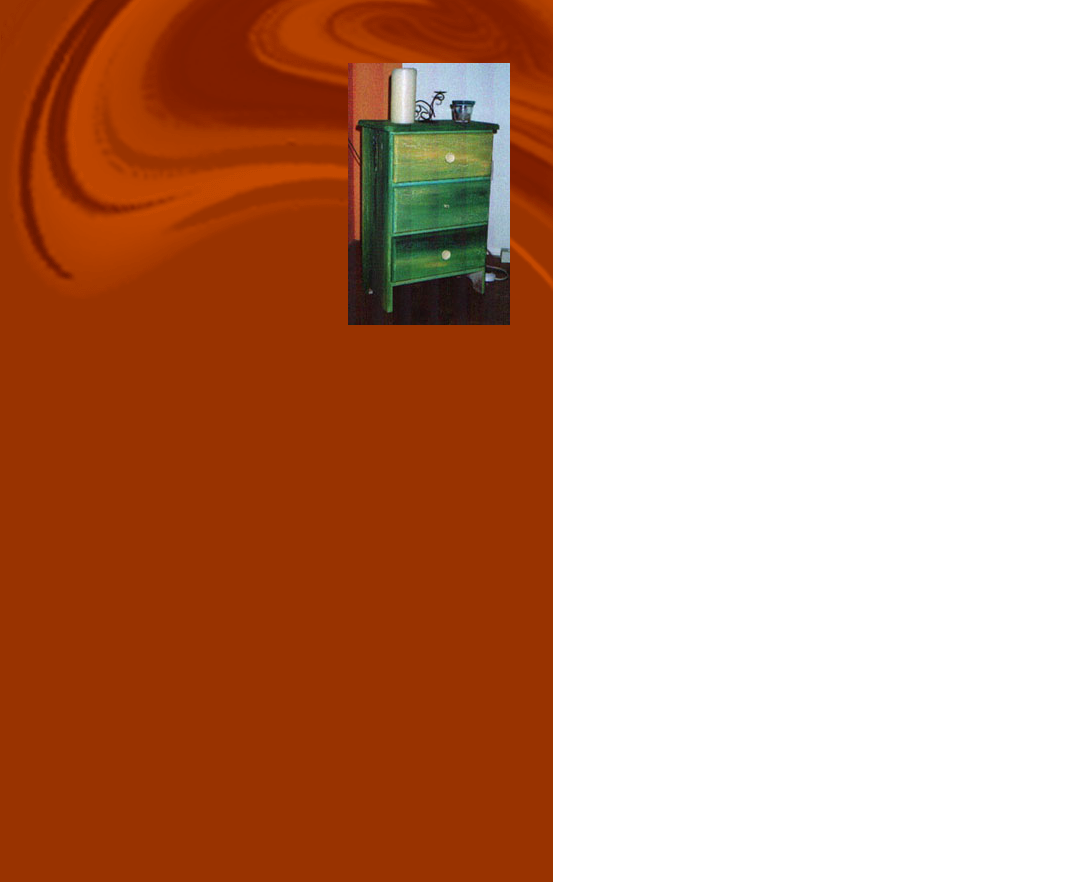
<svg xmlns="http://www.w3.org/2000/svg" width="1067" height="882">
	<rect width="100%" height="100%" fill="#FFFFFF" />
	<rect x="0" y="0" width="553" height="882" fill="#993300" />
	<image x="1" y="0" width="552" height="299" href="assets/img1.png" />
	<image x="348" y="63" width="162" height="262" href="assets/img2.png" />
</svg>
